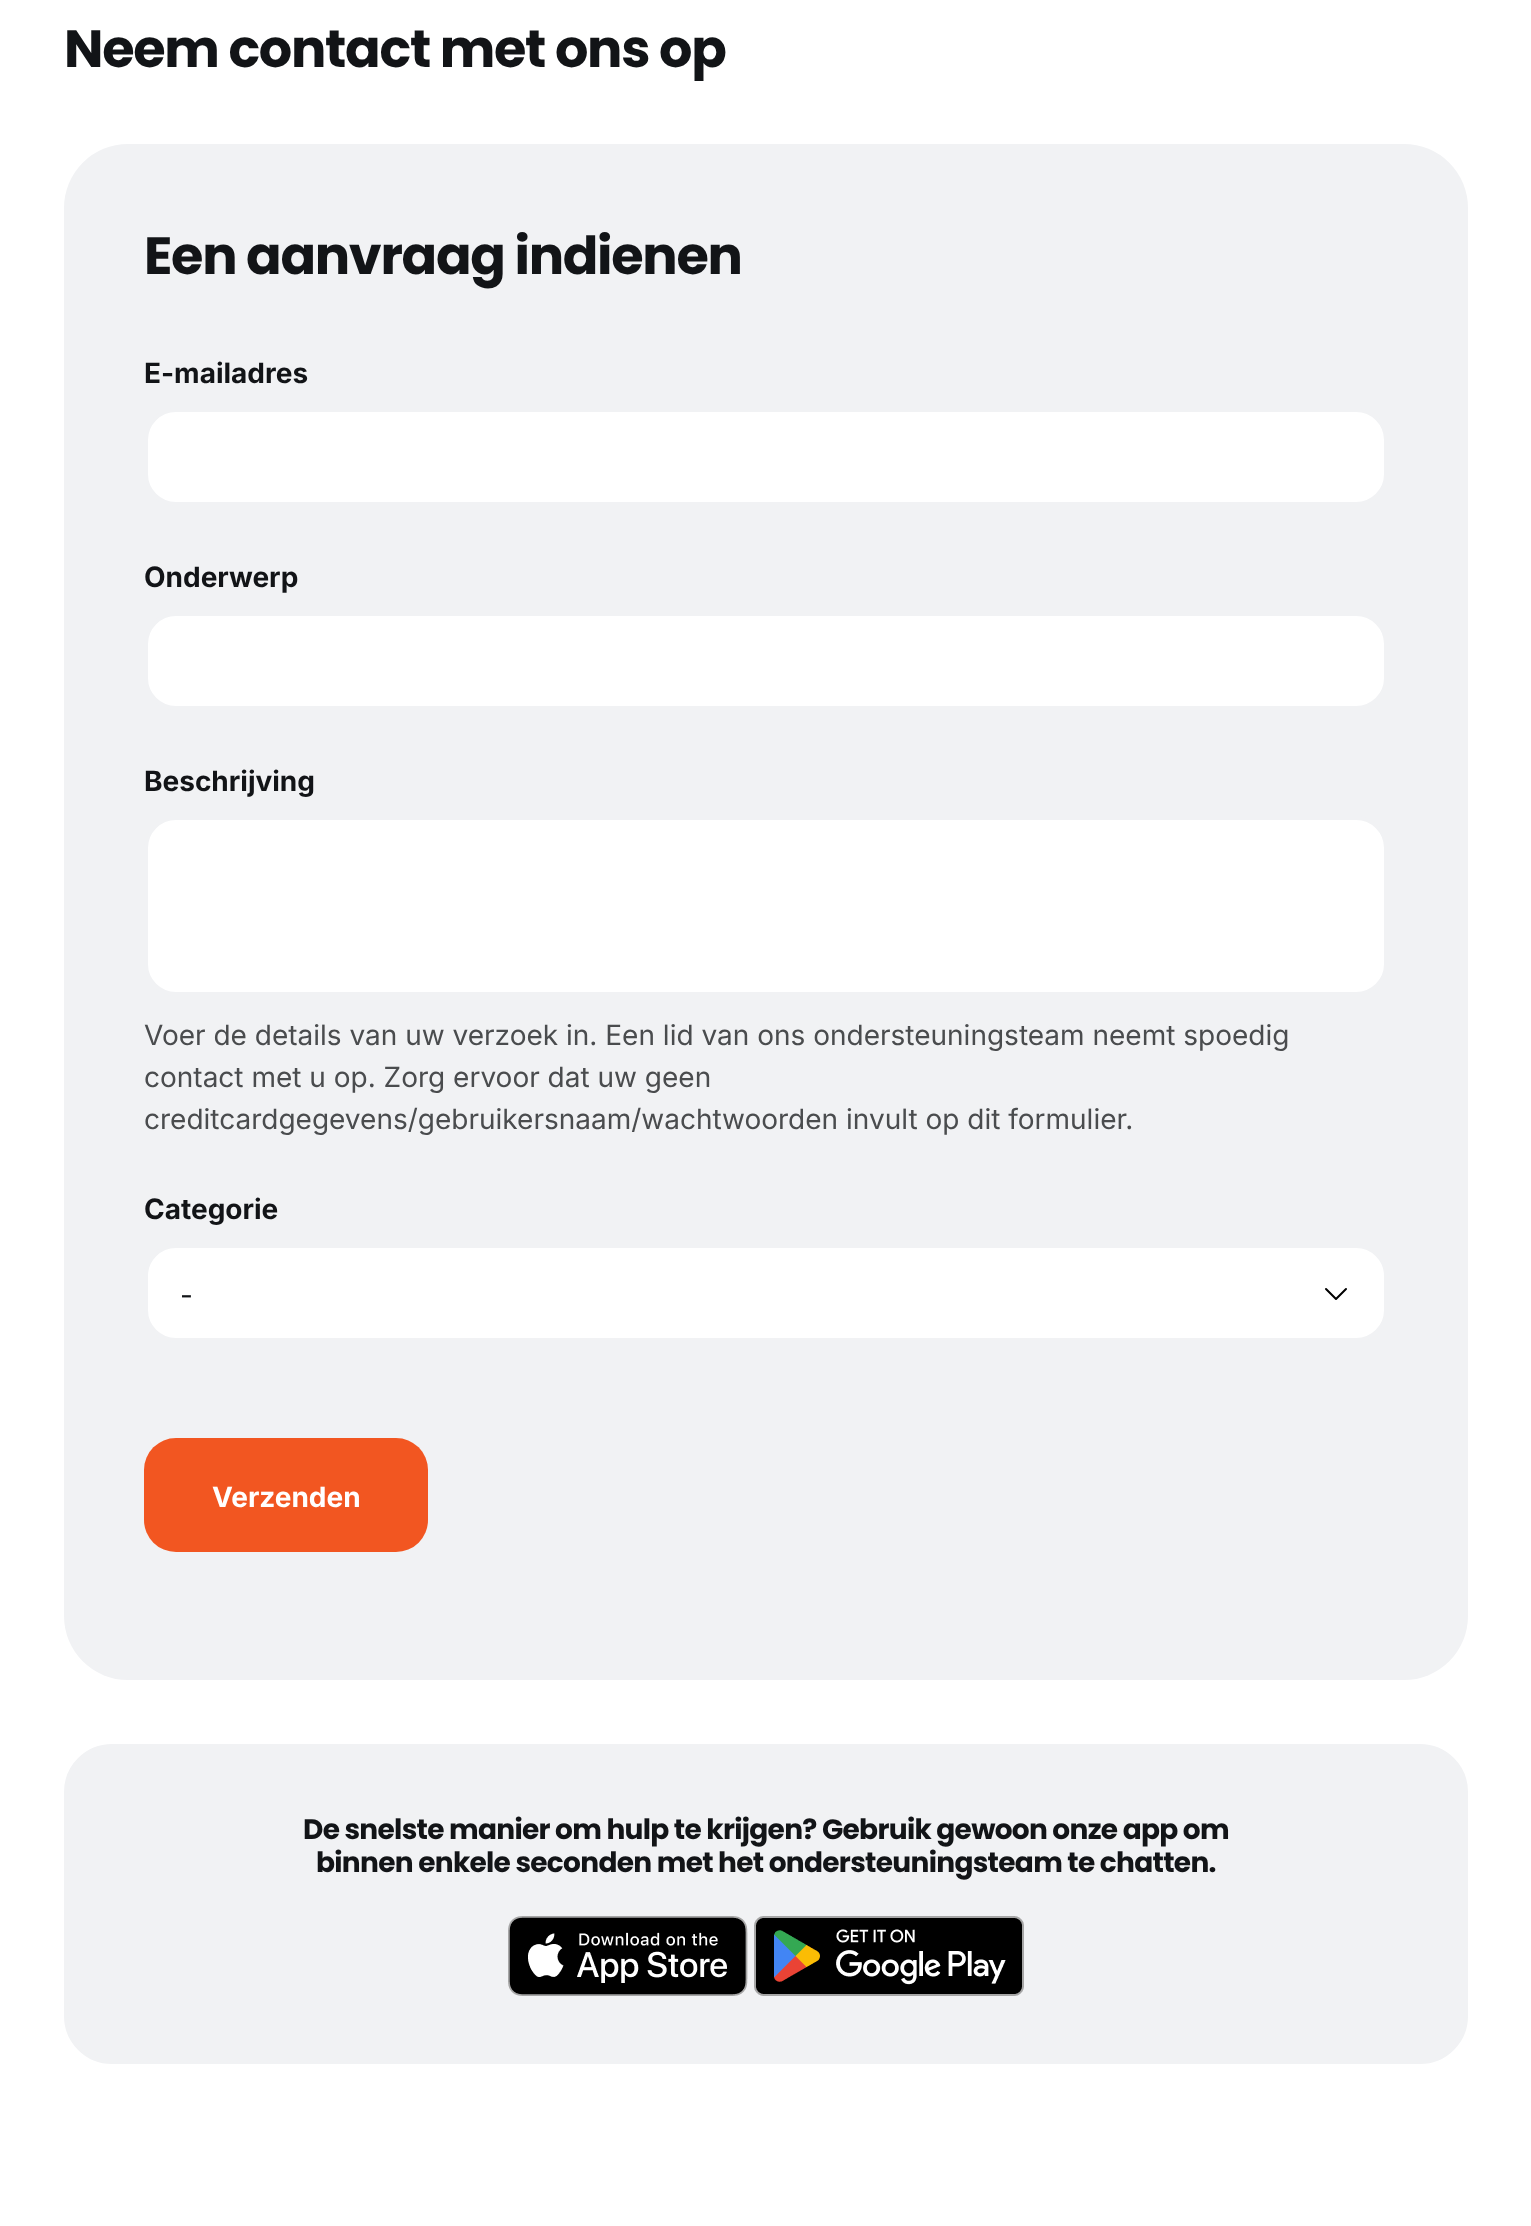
<svg xmlns="http://www.w3.org/2000/svg" width="1531" height="2226">
	<rect width="100%" height="100%" fill="#FFFFFF" />
	<text x="64" y="67" font-family="Poppins" font-size="52.5" font-weight="700" letter-spacing="-1.3" fill="#121417">Neem contact met ons op</text>
	<rect x="64" y="144" width="1404" height="1536" rx="64" fill="#F1F2F4" />
	<text x="144" y="274" font-family="Poppins" font-size="52.5" font-weight="700" letter-spacing="-1.3" fill="#121417">Een aanvraag indienen</text>
	<text x="144" y="383" font-family="Inter" font-size="28" font-weight="700" fill="#121417">E-mailadres</text>
	<rect x="146" y="410" width="1240" height="94" rx="30" fill="#FFFFFF" stroke="#F1F2F4" stroke-width="4" />
	<text x="144" y="587" font-family="Inter" font-size="28" font-weight="700" fill="#121417">Onderwerp</text>
	<rect x="146" y="614" width="1240" height="94" rx="30" fill="#FFFFFF" stroke="#F1F2F4" stroke-width="4" />
	<text x="144" y="791" font-family="Inter" font-size="28" font-weight="700" fill="#121417">Beschrijving</text>
	<rect x="146" y="818" width="1240" height="176" rx="30" fill="#FFFFFF" stroke="#F1F2F4" stroke-width="4" />
	<g font-family="Inter" font-size="28" fill="#4A4C4E">
		<text x="144" y="1045">Voer de details van uw verzoek in. Een lid van ons ondersteuningsteam neemt spoedig</text>
		<text x="144" y="1087">contact met u op. Zorg ervoor dat uw geen</text>
		<text x="144" y="1129">creditcardgegevens/gebruikersnaam/wachtwoorden invult op dit formulier.</text>
	</g>
	<text x="144" y="1219" font-family="Inter" font-size="28" font-weight="700" fill="#121417">Categorie</text>
	<rect x="146" y="1246" width="1240" height="94" rx="30" fill="#FFFFFF" stroke="#F1F2F4" stroke-width="4" />
	<text x="180" y="1305" font-family="Inter" font-size="28" fill="#121417">-</text>
	<path d="M1346 1289L1336 1299L1326 1289" fill="none" stroke="#000000" stroke-width="2" stroke-linecap="round" stroke-linejoin="round" />
	<rect x="144" y="1438" width="284" height="114" rx="32" fill="#F25621" />
	<text x="212" y="1507" font-family="Inter" font-size="28" font-weight="700" fill="#FFFFFF">Verzenden</text>
	<rect x="66" y="1746" width="1400" height="316" rx="46" fill="#F1F2F4" stroke="#F1F2F4" stroke-width="4" />
	<g font-family="Poppins" font-size="28" font-weight="700" letter-spacing="-0.7" fill="#121417">
		<text x="303" y="1839">De snelste manier om hulp te krijgen? Gebruik gewoon onze app om</text>
		<text x="316" y="1872">binnen enkele seconden met het ondersteuningsteam te chatten.</text>
	</g>
	<image x="508" y="1916" width="240" height="80" href="assets/img1.png" />
	<image x="754" y="1916" width="270" height="80" href="assets/img2.png" />
</svg>
